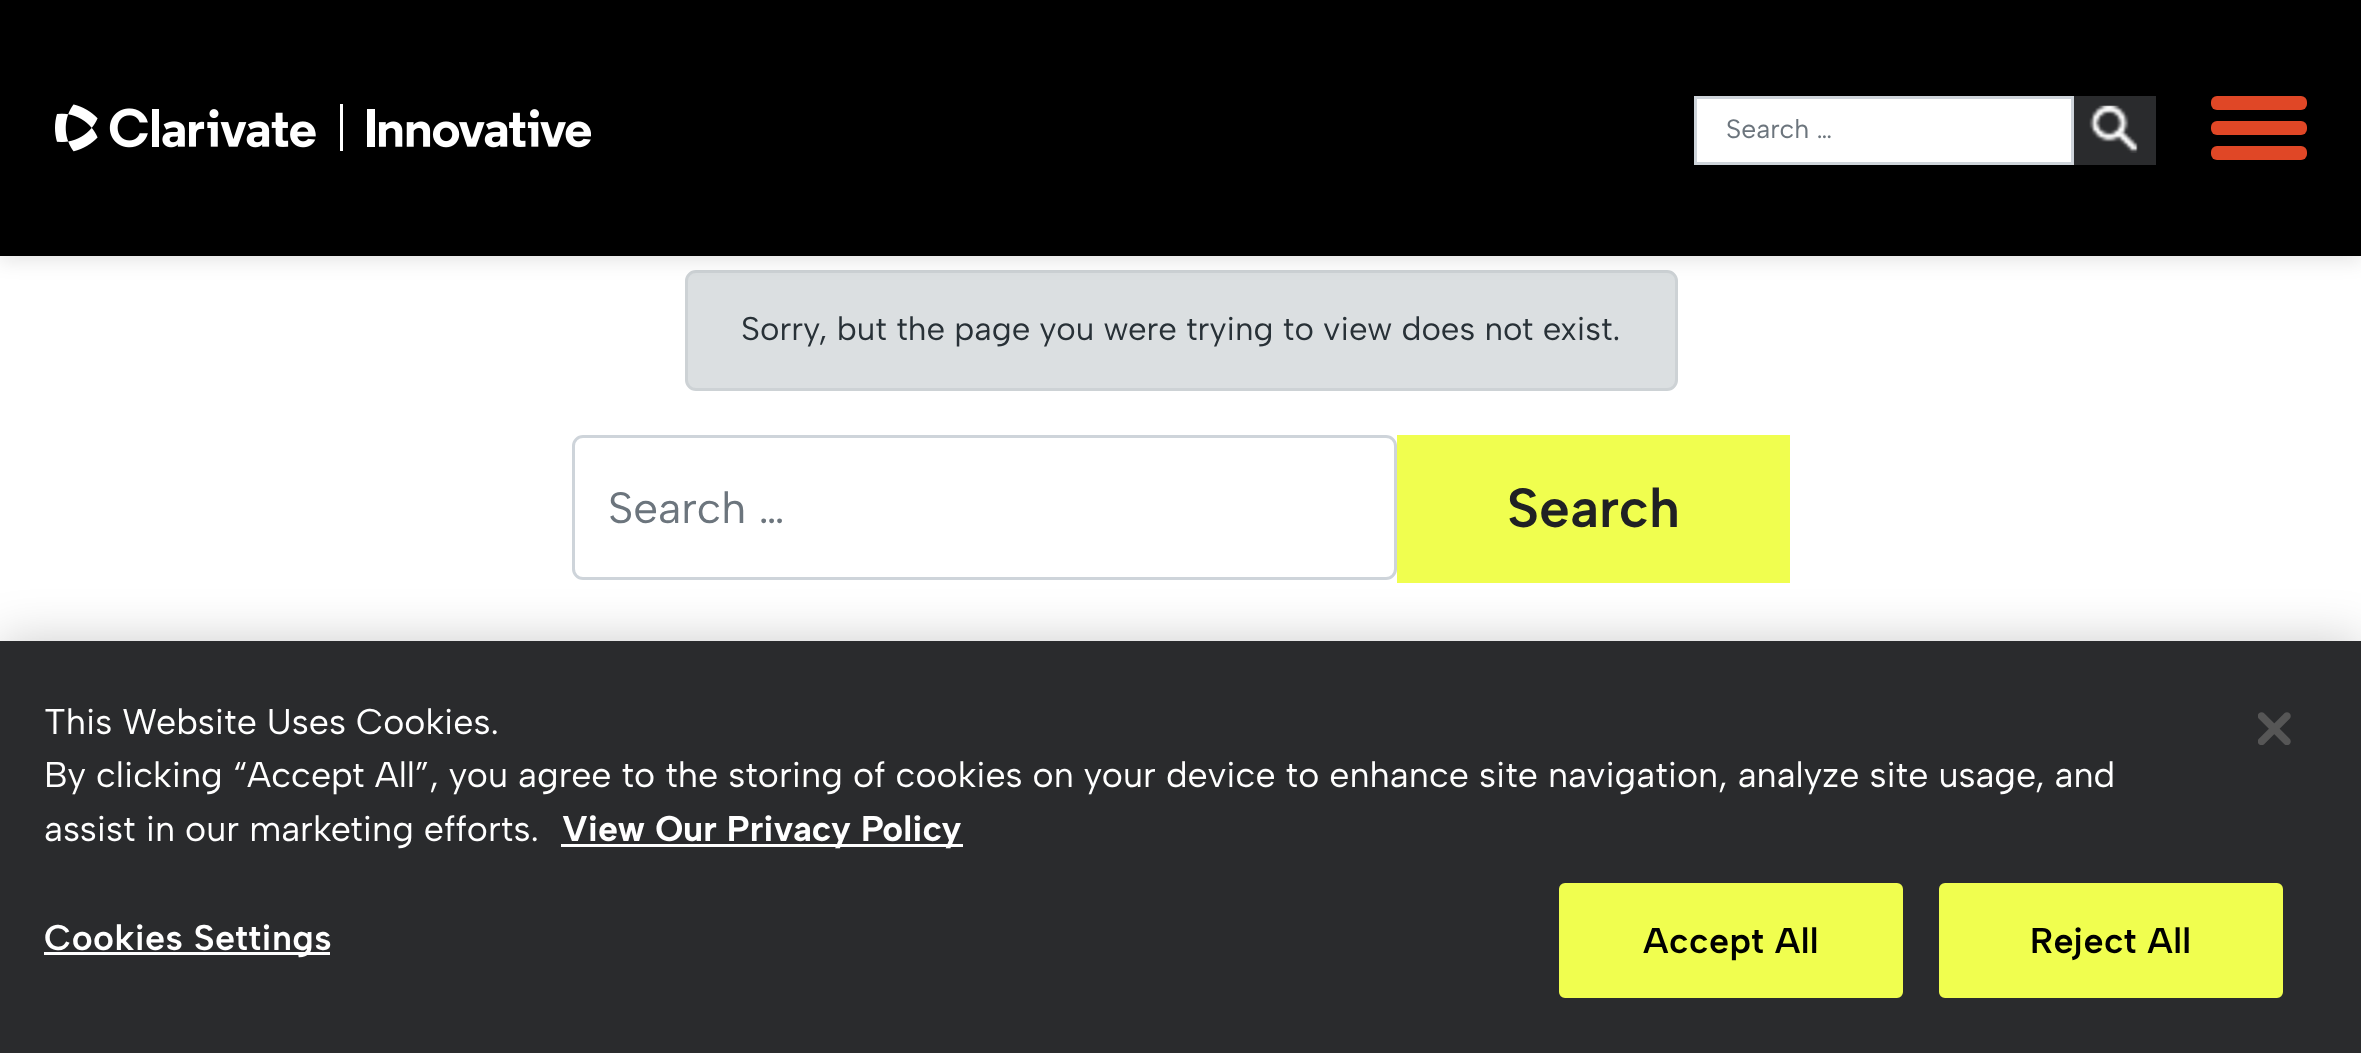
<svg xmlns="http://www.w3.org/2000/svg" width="2361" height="1053">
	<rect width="100%" height="100%" fill="#FFFFFF" />
	<rect x="686.5" y="271.5" width="990" height="118" rx="9.5" fill="#DBDFE1" stroke="#CDD2D5" stroke-width="3" />
	<rect x="0" y="6" width="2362" height="255" fill="#000000" fill-opacity="0.1" filter="blur(9.5px)" />
	<rect x="0" y="0" width="2361" height="256" fill="#000000" />
	<image x="55" y="104" width="536" height="48" href="assets/img1.png" />
	<rect x="1695.5" y="97.5" width="377" height="66" fill="#FFFFFF" stroke="#CED4DA" stroke-width="3" />
	<text x="1726" y="138" font-family="Albert Sans" font-size="26.5" fill="#6C757D">Search …</text>
	<rect x="2074" y="96" width="82" height="69" fill="#2A2B2D" />
	<image x="2089" y="105" width="49" height="48" href="assets/img2.png" />
	<rect x="2211" y="96" width="96" height="14" rx="6" fill="#E04726" />
	<rect x="2211" y="121" width="96" height="14" rx="6" fill="#E04726" />
	<rect x="2211" y="146" width="96" height="14" rx="6" fill="#E04726" />
	<text x="741" y="340" font-family="Albert Sans" font-size="33" fill="#283137">Sorry, but the page you were trying to view does not exist.</text>
	<rect x="573.5" y="436.5" width="822" height="142" rx="9.5" fill="none" stroke="#CED4DA" stroke-width="3" />
	<text x="608" y="523" font-family="Albert Sans" font-size="44" fill="#6C757D">Search …</text>
	<rect x="1397" y="435" width="393" height="148" fill="#F0FE4F" />
	<text x="1507" y="527" font-family="Albert Sans" font-size="55" font-weight="600" fill="#202124">Search</text>
	<rect x="0" y="641" width="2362" height="412" fill="#000000" fill-opacity="0.2" filter="blur(25px)" />
	<rect x="0" y="641" width="2361" height="412" fill="#2A2B2D" />
	<g font-family="Albert Sans" font-size="35.77" fill="#FFFFFF">
		<text x="44" y="734">This Website Uses Cookies.</text>
		<text x="44" y="787">By clicking “Accept All”, you agree to the storing of cookies on your device to enhance site navigation, analyze site usage, and</text>
		<text x="44" y="841">assist in our marketing efforts.</text>
	</g>
	<rect x="561" y="844" width="402" height="3" fill="#FFFFFF" />
	<text x="562" y="841" font-family="Albert Sans" font-size="35.77" font-weight="700" fill="#FFFFFF">View Our Privacy Policy</text>
	<rect x="44" y="952" width="286" height="3" fill="#FFFFFF" />
	<text x="44" y="950" font-family="Albert Sans" font-size="35.77" font-weight="600" letter-spacing="0.4" fill="#FFFFFF">Cookies Settings</text>
	<rect x="1560.5" y="884.5" width="341" height="112" rx="4.5" fill="#F0FE4F" stroke="#F0FE4F" stroke-width="3" />
	<text x="1643" y="953" font-family="Albert Sans" font-size="35.77" font-weight="600" letter-spacing="0.4" fill="#000000">Accept All</text>
	<rect x="1940.5" y="884.5" width="341" height="112" rx="4.5" fill="#F0FE4F" stroke="#F0FE4F" stroke-width="3" />
	<text x="2030" y="953" font-family="Albert Sans" font-size="35.77" font-weight="600" letter-spacing="0.4" fill="#000000">Reject All</text>
	<image x="2258" y="712" width="33" height="33" href="assets/img3.png" />
</svg>
